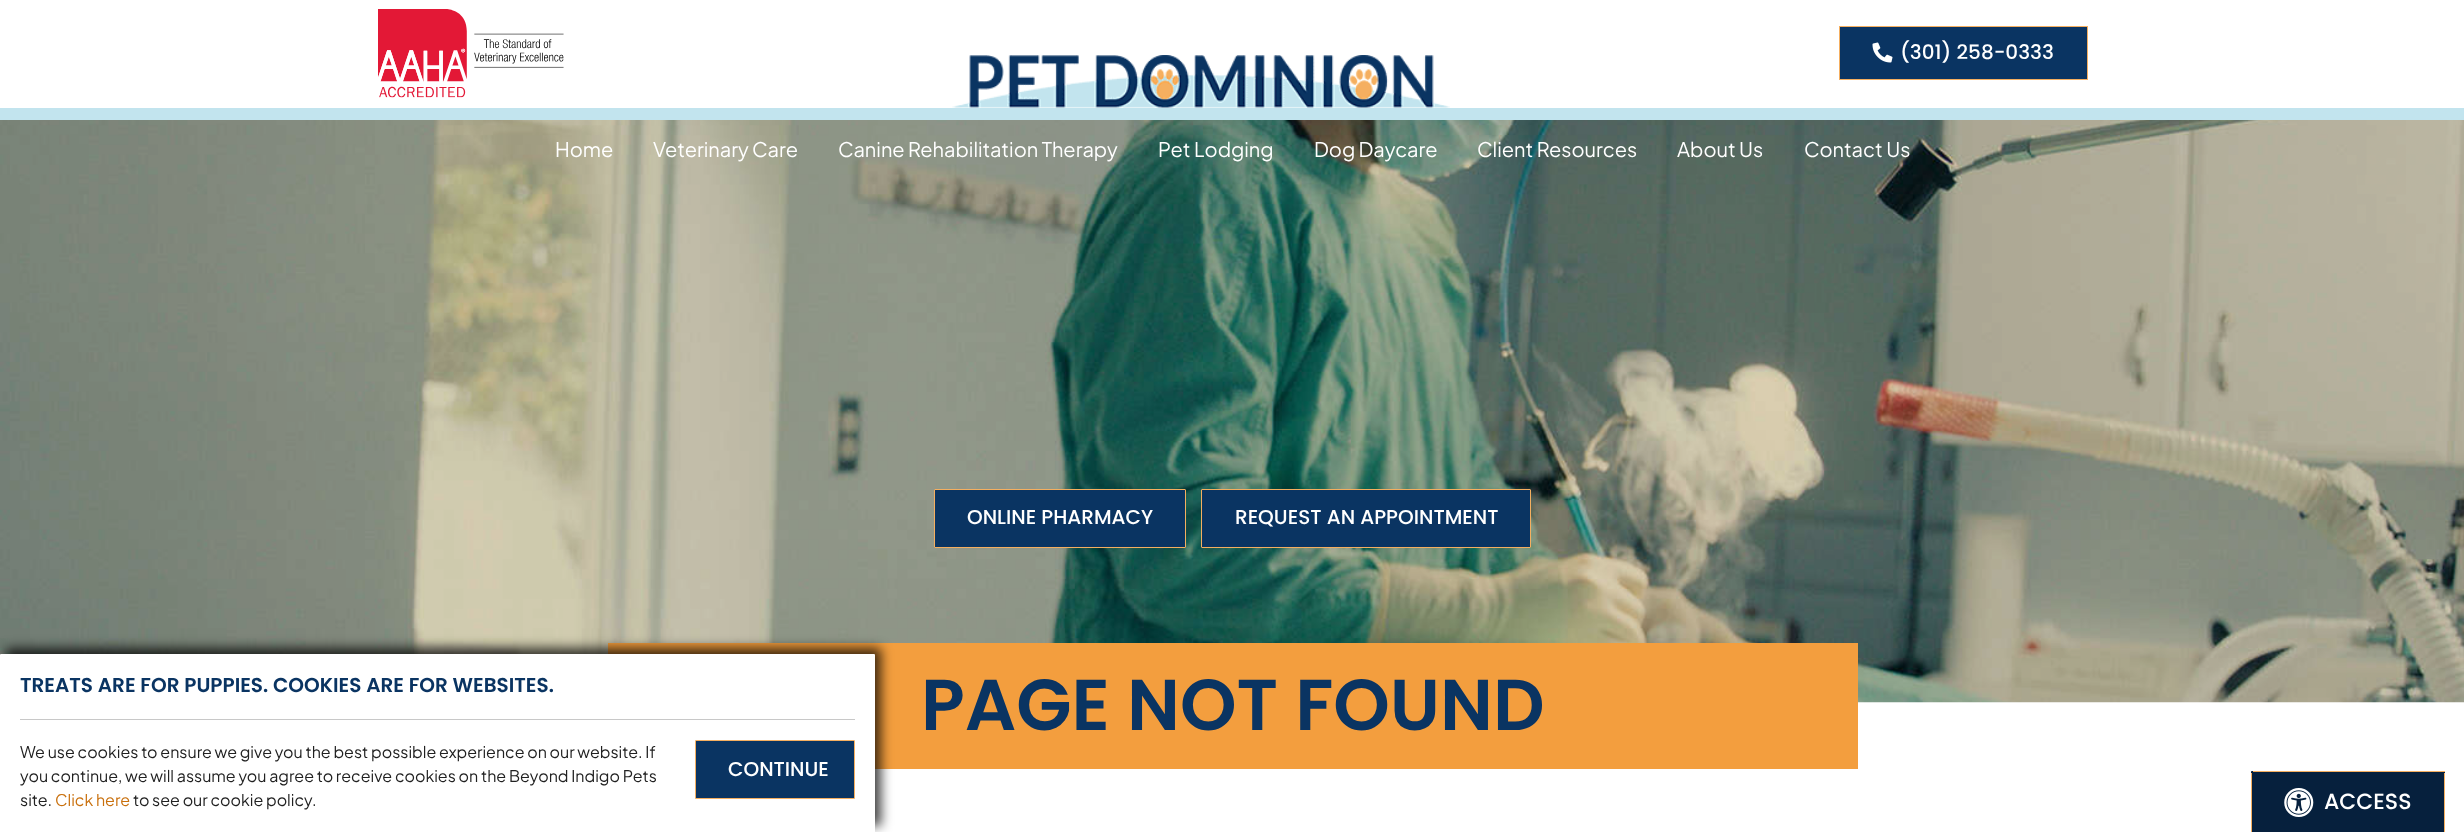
<svg xmlns="http://www.w3.org/2000/svg" width="2464" height="832">
	<rect width="100%" height="100%" fill="#FFFFFF" />
	<image x="0" y="120" width="2464" height="583" href="assets/img4.png" />
	<rect x="608" y="643" width="1250" height="126" fill="#F39E3E" />
	<rect x="6" y="648" width="875" height="178" rx="1" fill="#000000" fill-opacity="0.75" filter="blur(6px)" />
	<rect x="0" y="654" width="875" height="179" rx="1" fill="#FFFFFF" />
	<text x="20" y="692" font-family="Poppins" font-size="20" font-weight="600" fill="#0A3462">TREATS ARE FOR PUPPIES. COOKIES ARE FOR WEBSITES.</text>
	<rect x="20" y="719" width="835" height="1" fill="#C8C8C8" />
	<g font-family="Plus Jakarta Sans" font-size="16" fill="#212121">
		<text x="20" y="758">We use cookies to ensure we give you the best possible experience on our website. If</text>
		<text x="20" y="782">you continue, we will assume you agree to receive cookies on the Beyond Indigo Pets</text>
		<text x="20" y="806">site.</text>
	</g>
	<text x="55" y="806" font-family="Plus Jakarta Sans" font-size="16" fill="#C9700D">Click here</text>
	<text x="133" y="806" font-family="Plus Jakarta Sans" font-size="16" fill="#212121">to see our cookie policy.</text>
	<rect x="695.5" y="740.5" width="159" height="58" rx="0.5" fill="#0A3462" stroke="#F5AF60" />
	<text x="728" y="776" font-family="Poppins" font-size="20" font-weight="500" fill="#FFFFFF">CONTINUE</text>
	<image x="378" y="9" width="186" height="89" href="assets/img1.png" />
	<rect x="1839.5" y="26.5" width="248" height="53" fill="#0A3462" stroke="#F5AF60" />
	<image x="1872" y="42" width="21" height="21" href="assets/img2.png" />
	<text x="1900" y="59" font-family="Poppins" font-size="20" font-weight="500" fill="#FFFFFF">(301) 258-0333</text>
	<image x="952" y="55" width="498" height="53" href="assets/img3.png" />
	<rect x="0" y="108" width="2464" height="12" fill="#C2E4EE" />
	<g font-family="Plus Jakarta Sans" font-size="20" fill="#FFFFFF">
		<text x="555" y="157">Home</text>
		<text x="653" y="157">Veterinary Care</text>
		<text x="838" y="157">Canine Rehabilitation Therapy</text>
		<text x="1158" y="157">Pet Lodging</text>
		<text x="1314" y="157">Dog Daycare</text>
		<text x="1477" y="157">Client Resources</text>
		<text x="1677" y="157">About Us</text>
		<text x="1804" y="157">Contact Us</text>
	</g>
	<rect x="934.5" y="489.5" width="251" height="58" rx="0.5" fill="#0A3462" stroke="#F5AF60" />
	<text x="967" y="524" font-family="Poppins" font-size="20" font-weight="500" fill="#FFFFFF">ONLINE PHARMACY</text>
	<rect x="1201.5" y="489.5" width="329" height="58" rx="0.5" fill="#0A3462" stroke="#F5AF60" />
	<text x="1235" y="524" font-family="Poppins" font-size="20" font-weight="500" fill="#FFFFFF">REQUEST AN APPOINTMENT</text>
	<text x="921" y="730" font-family="Poppins" font-size="72" font-weight="600" fill="#0A3462">PAGE NOT FOUND</text>
	<path d="M2252 771H2444C2444.5 771 2445 771.5 2445 772V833H2251V772C2251 771.5 2251.5 771 2252 771Z" fill="#06203D" />
	<rect x="2253" y="771" width="192" height="1" fill="#F5AF60" />
	<rect x="2444" y="773" width="1" height="59" fill="#F5AF60" />
	<rect x="2251" y="773" width="1" height="59" fill="#F5AF60" />
	<image x="2284" y="788" width="30" height="29" href="assets/img5.png" />
	<text x="2324" y="809" font-family="Poppins" font-size="22" font-weight="500" fill="#FFFFFF">ACCESS</text>
</svg>
